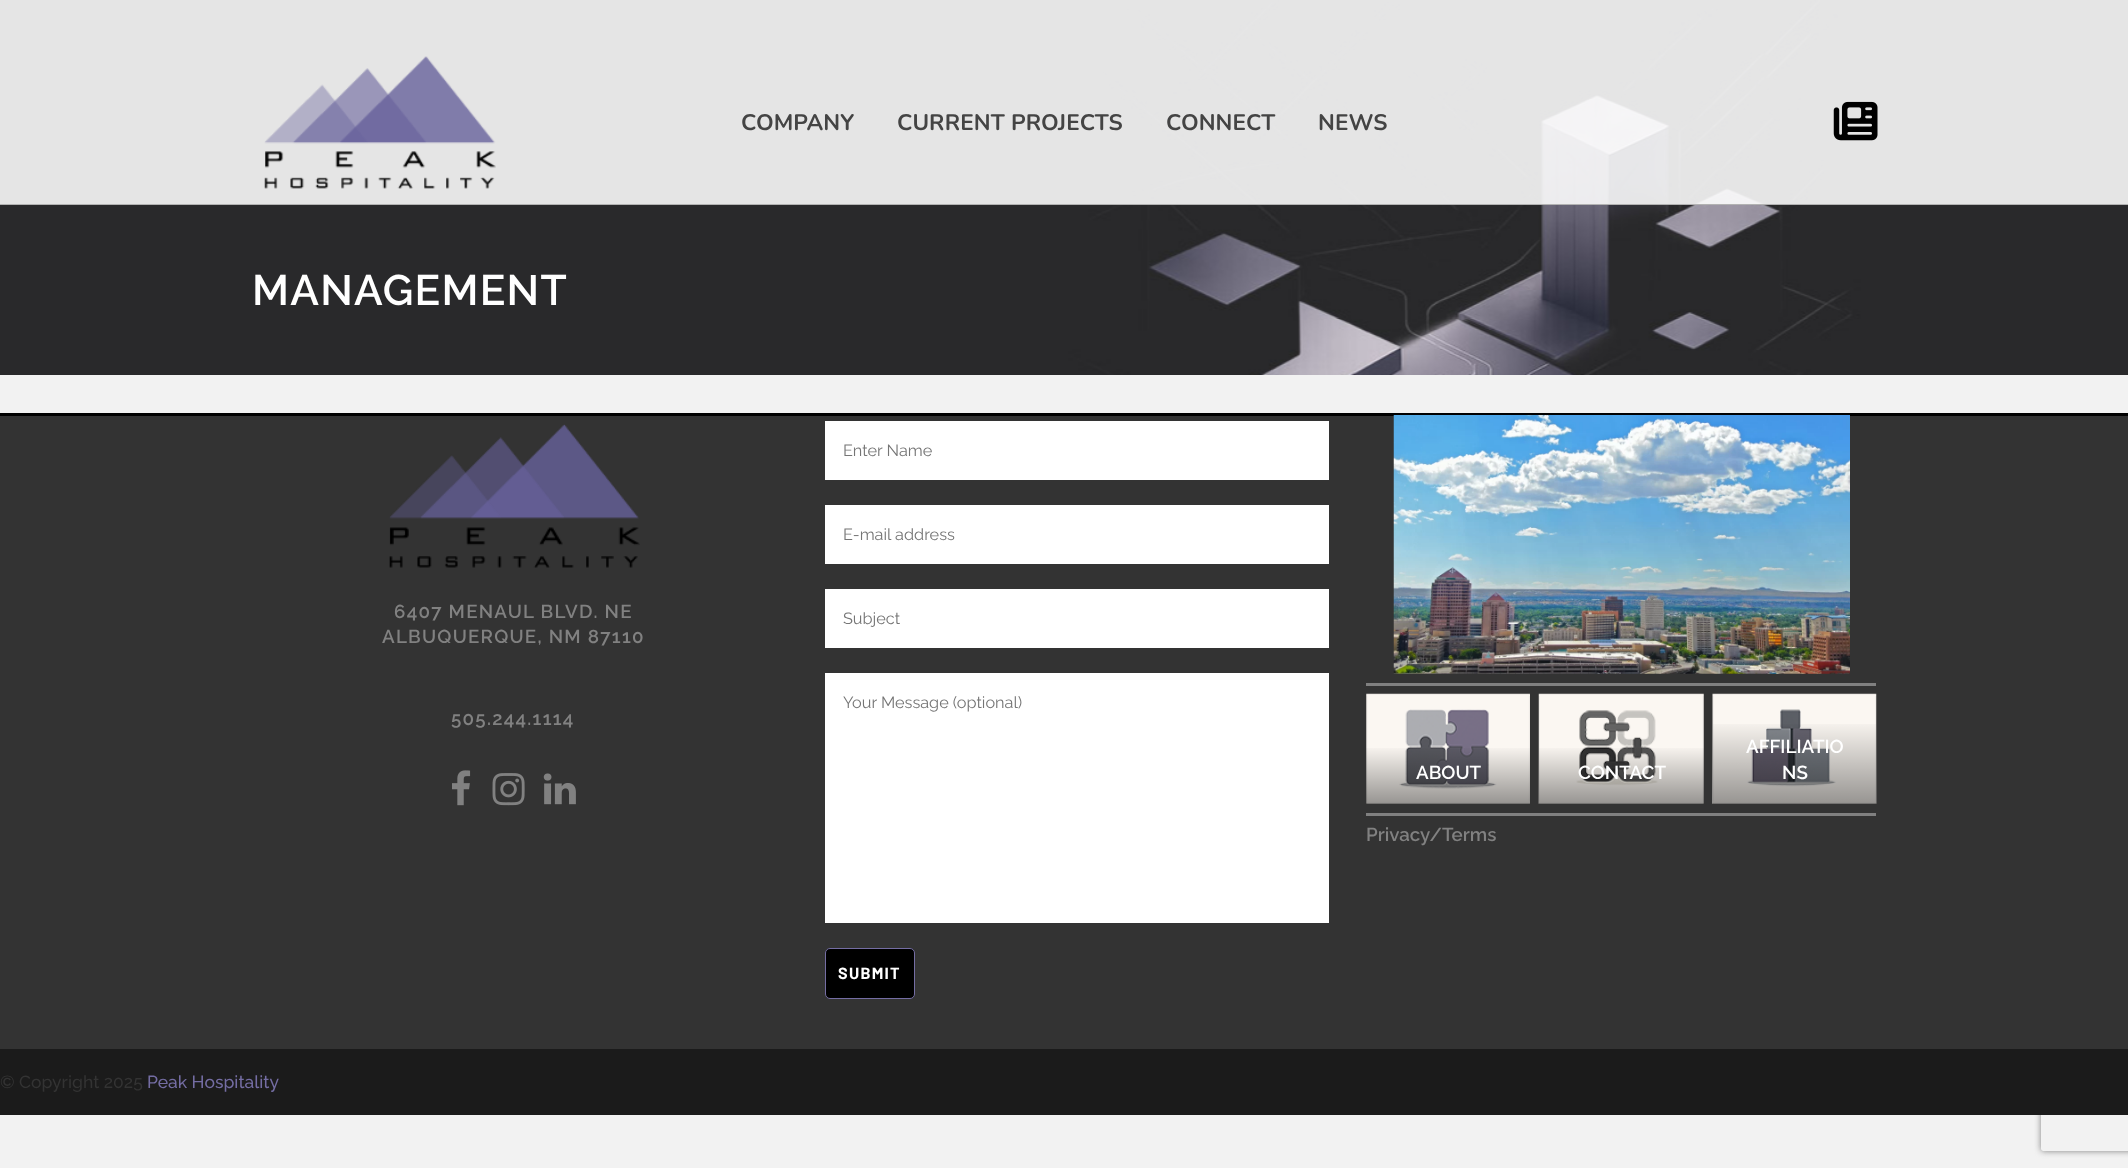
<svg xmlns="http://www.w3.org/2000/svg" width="2128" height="1168">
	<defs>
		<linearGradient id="g1" gradientUnits="userSpaceOnUse" x1="1448" y1="804" x2="1448" y2="745"><stop offset="0" stop-color="#000000" stop-opacity="0.4" /><stop offset="1" stop-color="#000000" stop-opacity="0" /></linearGradient>
		<linearGradient id="g2" gradientUnits="userSpaceOnUse" x1="1621" y1="804" x2="1621" y2="745"><stop offset="0" stop-color="#000000" stop-opacity="0.4" /><stop offset="1" stop-color="#000000" stop-opacity="0" /></linearGradient>
		<linearGradient id="g3" gradientUnits="userSpaceOnUse" x1="1794" y1="804" x2="1794" y2="719"><stop offset="0" stop-color="#000000" stop-opacity="0.4" /><stop offset="1" stop-color="#000000" stop-opacity="0" /></linearGradient>
		<clipPath id="clip1"><path d="M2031 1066H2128V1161H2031ZM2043.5 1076H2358.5C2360 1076 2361 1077 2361 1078.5V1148.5C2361 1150 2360 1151 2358.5 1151H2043.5C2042 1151 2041 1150 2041 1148.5V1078.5C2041 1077 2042 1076 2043.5 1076Z" clip-rule="evenodd" /></clipPath>
	</defs>
	<rect width="100%" height="100%" fill="#F2F2F2" />
	<image x="0" y="0" width="2128" height="375" href="assets/img3.png" />
	<rect x="0" y="0" width="2128" height="41" fill="#FFFFFF" fill-opacity="0.88" />
	<rect x="0" y="41" width="2128" height="163" fill="#FFFFFF" fill-opacity="0.88" />
	<rect x="0" y="204" width="2128" height="1" fill="#B2B2B2" />
	<image x="264" y="56" width="232" height="133" href="assets/img1.png" />
	<g font-family="Nunito" font-size="22.5" font-weight="700" letter-spacing="0.1" fill="#444444">
		<text x="741" y="130">COMPANY</text>
		<text x="897" y="130">CURRENT PROJECTS</text>
		<text x="1166" y="130">CONNECT</text>
		<text x="1318" y="130">NEWS</text>
	</g>
	<image x="1833" y="101" width="45" height="40" href="assets/img2.png" />
	<text x="252" y="305" font-family="Raleway" font-size="42.5" font-weight="600" letter-spacing="1.25" fill="#FFFFFF">MANAGEMENT</text>
	<rect x="0" y="416" width="2128" height="633" fill="#333333" />
	<rect x="0" y="413" width="2128" height="3" fill="#000000" />
	<image x="389" y="424" width="251" height="144" href="assets/img4.png" />
	<g font-family="Raleway" font-size="18.75" font-weight="600" letter-spacing="1.25" fill="#818181">
		<text x="394" y="618">6407 MENAUL BLVD. NE</text>
		<text x="382" y="643">ALBUQUERQUE, NM 87110</text>
		<text x="451" y="725">505.244.1114</text>
	</g>
	<image x="452" y="770" width="19" height="36" href="assets/img5.png" />
	<image x="492" y="773" width="33" height="33" href="assets/img6.png" />
	<image x="543" y="773" width="33" height="32" href="assets/img7.png" />
	<rect x="825" y="421" width="504" height="59" fill="#FFFFFF" />
	<text x="843" y="456" font-family="Raleway" font-size="16.25" fill="#757575">Enter Name</text>
	<rect x="825" y="505" width="504" height="59" fill="#FFFFFF" />
	<text x="843" y="540" font-family="Raleway" font-size="16.25" fill="#757575">E-mail address</text>
	<rect x="825" y="589" width="504" height="59" fill="#FFFFFF" />
	<text x="843" y="624" font-family="Raleway" font-size="16.25" fill="#757575">Subject</text>
	<rect x="825" y="673" width="504" height="250" fill="#FFFFFF" />
	<text x="843" y="708" font-family="Raleway" font-size="16.25" fill="#757575">Your Message (optional)</text>
	<rect x="825.5" y="948.5" width="89" height="50" rx="4.5" fill="#000000" stroke="#746DA3" />
	<text x="838" y="979" font-family="Barlow" font-size="16.25" font-weight="700" letter-spacing="1.25" fill="#FFFFFF">SUBMIT</text>
	<image x="1393" y="415" width="457" height="259" href="assets/img8.png" />
	<rect x="1366" y="683" width="510" height="3" fill="#808080" />
	<image x="1366" y="693" width="164" height="111" href="assets/img9.png" />
	<rect x="1366" y="748" width="164" height="56" fill="url(#g1)" />
	<text x="1416" y="779" font-family="Raleway" font-size="18.75" font-weight="600" fill="#FFFFFF">ABOUT</text>
	<image x="1538" y="693" width="166" height="111" href="assets/img10.png" />
	<rect x="1539" y="748" width="165" height="56" fill="url(#g2)" />
	<text x="1578" y="779" font-family="Raleway" font-size="18.75" font-weight="600" fill="#FFFFFF">CONTACT</text>
	<image x="1712" y="693" width="165" height="111" href="assets/img11.png" />
	<rect x="1713" y="724" width="163" height="80" fill="url(#g3)" />
	<g font-family="Raleway" font-size="18.75" font-weight="600" fill="#FFFFFF">
		<text x="1746" y="753">AFFILIATIO</text>
		<text x="1782" y="779">NS</text>
	</g>
	<rect x="1366" y="813" width="510" height="3" fill="#808080" />
	<text x="1366" y="841" font-family="Raleway" font-size="18.75" font-weight="600" fill="#818181">Privacy/Terms</text>
	<g clip-path="url(#clip1)">
		<rect x="2041" y="1076" width="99" height="75" rx="2.5" fill="#808080" filter="blur(3px)" />
	</g>
	<rect x="0" y="1049" width="2128" height="66" fill="#1B1B1B" />
	<text x="0" y="1088" font-family="Raleway" font-size="17.5" font-weight="500" fill="#333333">© Copyright 2025</text>
	<text x="147" y="1088" font-family="Raleway" font-size="17.5" font-weight="500" fill="#746DA3">Peak Hospitality</text>
</svg>
